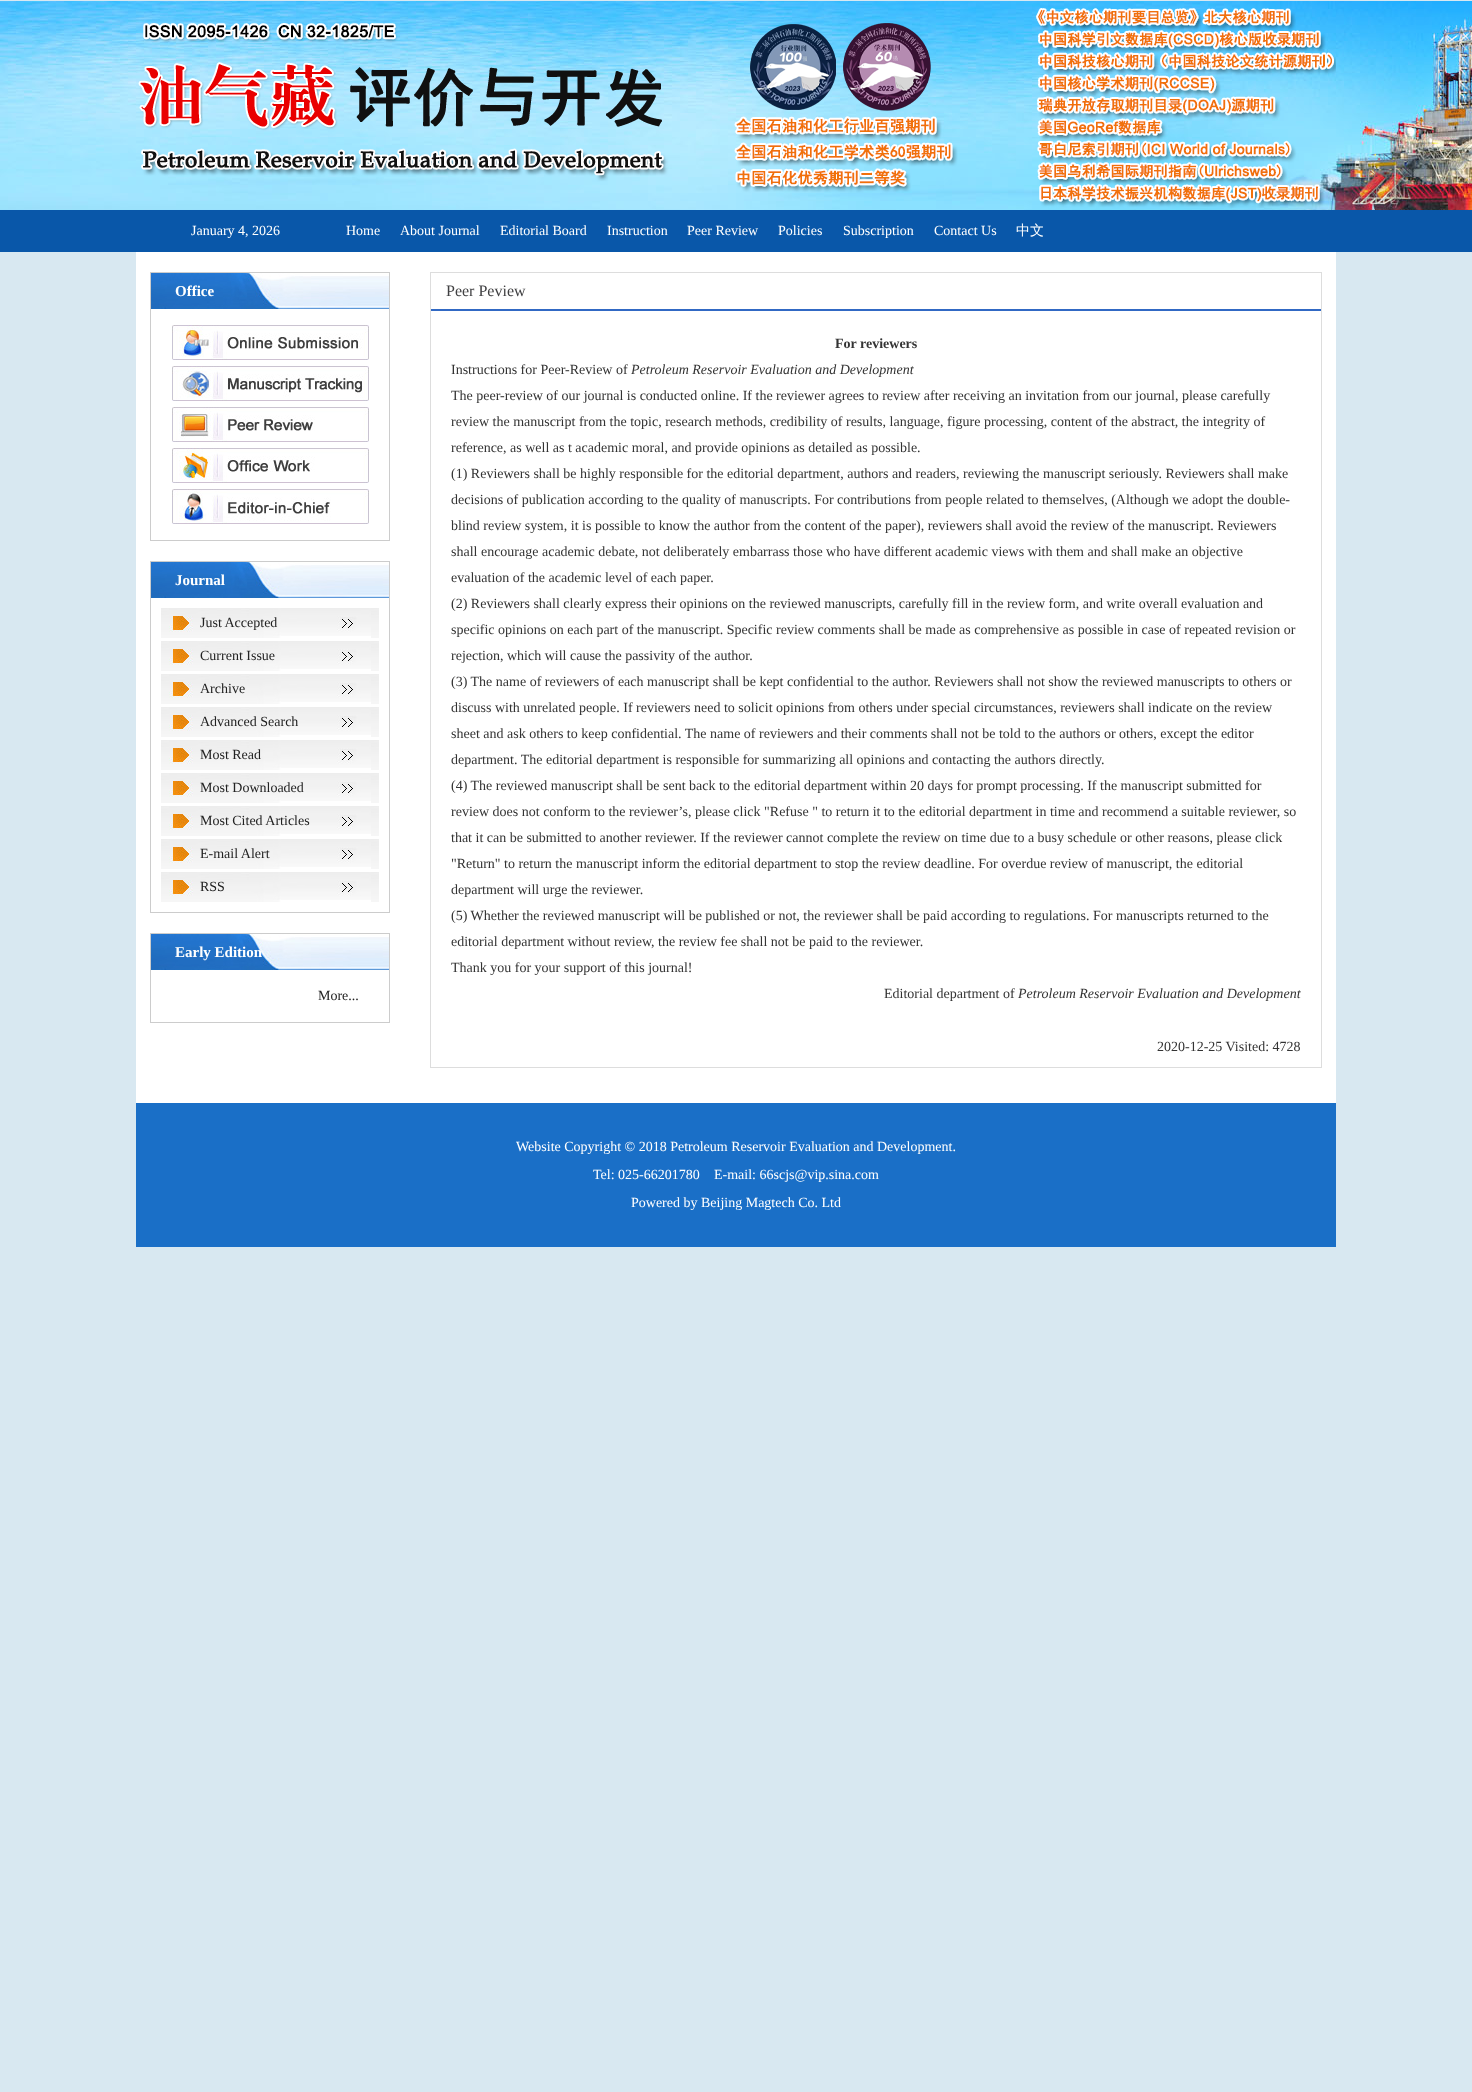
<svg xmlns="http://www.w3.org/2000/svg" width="1472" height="2092">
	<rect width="100%" height="100%" fill="#D8E8F1" />
	<image x="0" y="1" width="1472" height="209" href="assets/img1.png" />
	<image x="138" y="8" width="1198" height="200" href="assets/img2.png" />
	<rect x="0" y="210" width="1472" height="42" fill="#0957A9" />
	<g font-family="Liberation Serif" font-size="14" fill="#FFFFFF">
		<text x="191" y="235">January 4, 2026</text>
		<text x="346" y="235">Home</text>
		<text x="400" y="235">About Journal</text>
		<text x="500" y="235">Editorial Board</text>
		<text x="607" y="235">Instruction</text>
		<text x="687" y="235">Peer Review</text>
		<text x="778" y="235">Policies</text>
		<text x="843" y="235">Subscription</text>
		<text x="934" y="235">Contact Us</text>
	</g>
	<text x="1016" y="235" font-family="WenQuanYi Zen Hei" font-size="14" font-weight="500" fill="#FFFFFF">中文</text>
	<rect x="136" y="252" width="1200" height="851" fill="#FFFFFF" />
	<rect x="150.5" y="272.5" width="239" height="268" fill="none" stroke="#CCCCCC" />
	<image x="151" y="273" width="238" height="36" href="assets/img3.png" />
	<text x="175" y="296" font-family="Liberation Serif" font-size="15" font-weight="700" fill="#FFFFFF">Office</text>
	<image x="172" y="325" width="197" height="35" href="assets/img4.png" />
	<image x="172" y="366" width="197" height="35" href="assets/img5.png" />
	<image x="172" y="407" width="197" height="35" href="assets/img6.png" />
	<image x="172" y="448" width="197" height="35" href="assets/img7.png" />
	<image x="172" y="489" width="197" height="35" href="assets/img8.png" />
	<rect x="150.5" y="561.5" width="239" height="351" fill="none" stroke="#CCCCCC" />
	<image x="151" y="562" width="238" height="36" href="assets/img3.png" />
	<text x="175" y="585" font-family="Liberation Serif" font-size="15" font-weight="700" fill="#FFFFFF">Journal</text>
	<image x="161" y="608" width="218" height="30" href="assets/img9.png" />
	<text x="200" y="627" font-family="Liberation Serif" font-size="14" fill="#222222">Just Accepted</text>
	<image x="161" y="641" width="218" height="30" href="assets/img9.png" />
	<text x="200" y="660" font-family="Liberation Serif" font-size="14" fill="#222222">Current Issue</text>
	<image x="161" y="674" width="218" height="30" href="assets/img9.png" />
	<text x="200" y="693" font-family="Liberation Serif" font-size="14" fill="#222222">Archive</text>
	<image x="161" y="707" width="218" height="30" href="assets/img9.png" />
	<text x="200" y="726" font-family="Liberation Serif" font-size="14" fill="#222222">Advanced Search</text>
	<image x="161" y="740" width="218" height="30" href="assets/img9.png" />
	<text x="200" y="759" font-family="Liberation Serif" font-size="14" fill="#222222">Most Read</text>
	<image x="161" y="773" width="218" height="30" href="assets/img9.png" />
	<text x="200" y="792" font-family="Liberation Serif" font-size="14" fill="#222222">Most Downloaded</text>
	<image x="161" y="806" width="218" height="30" href="assets/img9.png" />
	<text x="200" y="825" font-family="Liberation Serif" font-size="14" fill="#222222">Most Cited Articles</text>
	<image x="161" y="839" width="218" height="30" href="assets/img9.png" />
	<text x="200" y="858" font-family="Liberation Serif" font-size="14" fill="#222222">E-mail Alert</text>
	<image x="161" y="872" width="218" height="30" href="assets/img9.png" />
	<text x="200" y="891" font-family="Liberation Serif" font-size="14" fill="#222222">RSS</text>
	<rect x="150.5" y="933.5" width="239" height="89" fill="none" stroke="#CCCCCC" />
	<image x="151" y="934" width="238" height="36" href="assets/img3.png" />
	<text x="175" y="957" font-family="Liberation Serif" font-size="15" font-weight="700" fill="#FFFFFF">Early Edition</text>
	<text x="318" y="1000" font-family="Liberation Serif" font-size="14" fill="#222222">More...</text>
	<rect x="430.5" y="272.5" width="891" height="795" fill="none" stroke="#DDDDDD" />
	<rect x="431" y="309" width="890" height="2" fill="#3169C4" />
	<text x="446" y="296" font-family="Liberation Serif" font-size="16" fill="#404042">Peer Peview</text>
	<text x="835" y="348" font-family="Liberation Serif" font-size="14" font-weight="700" fill="#333333">For reviewers</text>
	<text x="451" y="374" font-family="Liberation Serif" font-size="14" fill="#333333">Instructions for Peer-Review of</text>
	<text x="631" y="374" font-family="Liberation Serif" font-size="14" font-style="italic" fill="#333333">Petroleum Reservoir Evaluation and Development</text>
	<g font-family="Liberation Serif" font-size="14" fill="#333333">
		<text x="451" y="400">The peer-review of our journal is conducted online. If the reviewer agrees to review after receiving an invitation from our journal, please carefully</text>
		<text x="451" y="426">review the manuscript from the topic, research methods, credibility of results, language, figure processing, content of the abstract, the integrity of</text>
		<text x="451" y="452">reference, as well as t academic moral, and provide opinions as detailed as possible.</text>
		<text x="451" y="478">(1) Reviewers shall be highly responsible for the editorial department, authors and readers, reviewing the manuscript seriously. Reviewers shall make</text>
		<text x="451" y="504">decisions of publication according to the quality of manuscripts. For contributions from people related to themselves, (Although we adopt the double-</text>
		<text x="451" y="530">blind review system, it is possible to know the author from the content of the paper), reviewers shall avoid the review of the manuscript. Reviewers</text>
		<text x="451" y="556">shall encourage academic debate, not deliberately embarrass those who have different academic views with them and shall make an objective</text>
		<text x="451" y="582">evaluation of the academic level of each paper.</text>
		<text x="451" y="608">(2) Reviewers shall clearly express their opinions on the reviewed manuscripts, carefully fill in the review form, and write overall evaluation and</text>
		<text x="451" y="634">specific opinions on each part of the manuscript. Specific review comments shall be made as comprehensive as possible in case of repeated revision or</text>
		<text x="451" y="660">rejection, which will cause the passivity of the author.</text>
		<text x="451" y="686">(3) The name of reviewers of each manuscript shall be kept confidential to the author. Reviewers shall not show the reviewed manuscripts to others or</text>
		<text x="451" y="712">discuss with unrelated people. If reviewers need to solicit opinions from others under special circumstances, reviewers shall indicate on the review</text>
		<text x="451" y="738">sheet and ask others to keep confidential. The name of reviewers and their comments shall not be told to the authors or others, except the editor</text>
		<text x="451" y="764">department. The editorial department is responsible for summarizing all opinions and contacting the authors directly.</text>
		<text x="451" y="790">(4) The reviewed manuscript shall be sent back to the editorial department within 20 days for prompt processing. If the manuscript submitted for</text>
		<text x="451" y="816">review does not conform to the reviewer’s, please click "Refuse " to return it to the editorial department in time and recommend a suitable reviewer, so</text>
		<text x="451" y="842">that it can be submitted to another reviewer. If the reviewer cannot complete the review on time due to a busy schedule or other reasons, please click</text>
		<text x="451" y="868">"Return" to return the manuscript inform the editorial department to stop the review deadline. For overdue review of manuscript, the editorial</text>
		<text x="451" y="894">department will urge the reviewer.</text>
		<text x="451" y="920">(5) Whether the reviewed manuscript will be published or not, the reviewer shall be paid according to regulations. For manuscripts returned to the</text>
		<text x="451" y="946">editorial department without review, the review fee shall not be paid to the reviewer.</text>
		<text x="451" y="972">Thank you for your support of this journal!</text>
		<text x="884" y="998">Editorial department of</text>
	</g>
	<text x="1018" y="998" font-family="Liberation Serif" font-size="14" font-style="italic" fill="#333333">Petroleum Reservoir Evaluation and Development</text>
	<text x="1157" y="1051" font-family="Liberation Serif" font-size="14" fill="#333333">2020-12-25 Visited: 4728</text>
	<rect x="136" y="1103" width="1200" height="144" fill="#1A6FC7" />
	<g font-family="Liberation Serif" font-size="14" fill="#FFFFFF">
		<text x="516" y="1151">Website Copyright © 2018 Petroleum Reservoir Evaluation and Development.</text>
		<text x="593" y="1179">Tel: 025-66201780</text>
		<text x="714" y="1179">E-mail: 66scjs@vip.sina.com</text>
		<text x="631" y="1207">Powered by Beijing Magtech Co. Ltd</text>
	</g>
</svg>
